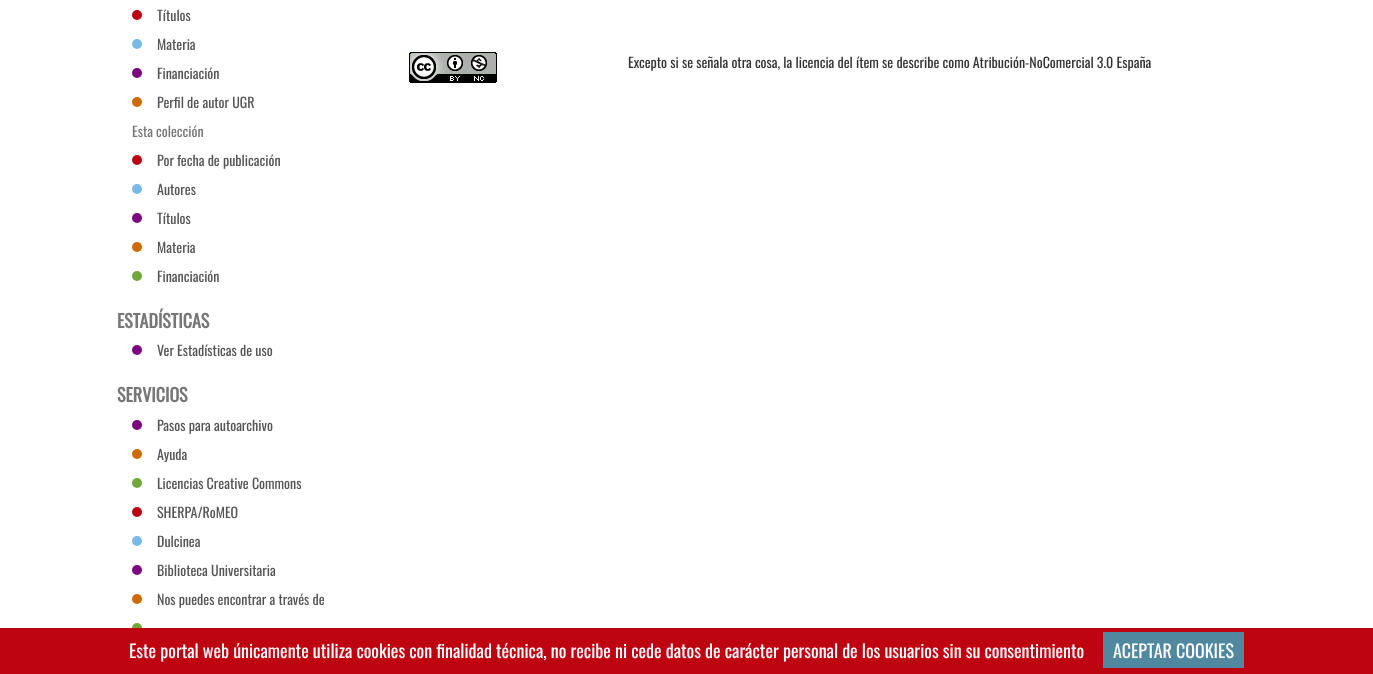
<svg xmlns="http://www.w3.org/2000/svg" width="1373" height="674">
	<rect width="100%" height="100%" fill="#FFFFFF" />
	<circle cx="137" cy="15" r="5" fill="#BF0411" />
	<text x="157" y="21" font-family="Oswald" font-size="14" fill="#555555">Títulos</text>
	<circle cx="137" cy="44" r="5" fill="#77BAE8" />
	<text x="157" y="50" font-family="Oswald" font-size="14" fill="#555555">Materia</text>
	<circle cx="137" cy="73" r="5" fill="#7B057E" />
	<text x="157" y="79" font-family="Oswald" font-size="14" fill="#555555">Financiación</text>
	<circle cx="137" cy="102" r="5" fill="#CE6B00" />
	<text x="157" y="108" font-family="Oswald" font-size="14" fill="#555555">Perfil de autor UGR</text>
	<text x="132" y="137" font-family="Oswald" font-size="14" fill="#777777">Esta colección</text>
	<circle cx="137" cy="160" r="5" fill="#BF0411" />
	<text x="157" y="166" font-family="Oswald" font-size="14" fill="#555555">Por fecha de publicación</text>
	<circle cx="137" cy="189" r="5" fill="#77BAE8" />
	<text x="157" y="195" font-family="Oswald" font-size="14" fill="#555555">Autores</text>
	<circle cx="137" cy="218" r="5" fill="#7B057E" />
	<text x="157" y="224" font-family="Oswald" font-size="14" fill="#555555">Títulos</text>
	<circle cx="137" cy="247" r="5" fill="#CE6B00" />
	<text x="157" y="253" font-family="Oswald" font-size="14" fill="#555555">Materia</text>
	<circle cx="137" cy="276" r="5" fill="#70A83B" />
	<text x="157" y="282" font-family="Oswald" font-size="14" fill="#555555">Financiación</text>
	<text x="117" y="328" font-family="Oswald" font-size="18" font-weight="700" fill="#777777">ESTADÍSTICAS</text>
	<circle cx="137" cy="350" r="5" fill="#7B057E" />
	<text x="157" y="356" font-family="Oswald" font-size="14" fill="#555555">Ver Estadísticas de uso</text>
	<text x="117" y="402" font-family="Oswald" font-size="18" font-weight="700" fill="#777777">SERVICIOS</text>
	<circle cx="137" cy="425" r="5" fill="#7B057E" />
	<text x="157" y="431" font-family="Oswald" font-size="14" fill="#555555">Pasos para autoarchivo</text>
	<circle cx="137" cy="454" r="5" fill="#CE6B00" />
	<text x="157" y="460" font-family="Oswald" font-size="14" fill="#555555">Ayuda</text>
	<circle cx="137" cy="483" r="5" fill="#70A83B" />
	<text x="157" y="489" font-family="Oswald" font-size="14" fill="#555555">Licencias Creative Commons</text>
	<circle cx="137" cy="512" r="5" fill="#BF0411" />
	<text x="157" y="518" font-family="Oswald" font-size="14" fill="#555555">SHERPA/RoMEO</text>
	<circle cx="137" cy="541" r="5" fill="#77BAE8" />
	<text x="157" y="547" font-family="Oswald" font-size="14" fill="#555555">Dulcinea</text>
	<circle cx="137" cy="570" r="5" fill="#7B057E" />
	<text x="157" y="576" font-family="Oswald" font-size="14" fill="#555555">Biblioteca Universitaria</text>
	<circle cx="137" cy="599" r="5" fill="#CE6B00" />
	<text x="157" y="605" font-family="Oswald" font-size="14" fill="#555555">Nos puedes encontrar a través de</text>
	<circle cx="137" cy="628" r="5" fill="#70A83B" />
	<image x="409" y="52" width="88" height="31" href="assets/img1.png" />
	<text x="628" y="68" font-family="Oswald" font-size="14" fill="#333333">Excepto si se señala otra cosa, la licencia del ítem se describe como Atribución-NoComercial 3.0 España</text>
	<rect x="0" y="628" width="1373" height="46" fill="#BF0411" />
	<text x="129" y="658" font-family="Oswald" font-size="18" fill="#FFFFFF">Este portal web únicamente utiliza cookies con finalidad técnica, no recibe ni cede datos de carácter personal de los usuarios sin su consentimiento</text>
	<rect x="1103" y="632" width="141" height="36" fill="#5088A0" />
	<text x="1113" y="658" font-family="Oswald" font-size="18" fill="#FFFFFF">ACEPTAR COOKIES</text>
</svg>
